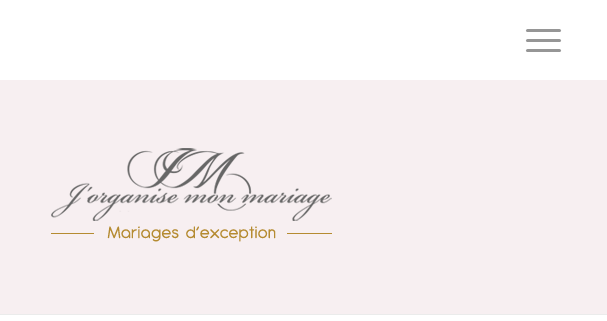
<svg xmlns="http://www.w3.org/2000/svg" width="607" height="321">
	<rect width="100%" height="100%" fill="#FFFFFF" />
	<rect x="526" y="39" width="35" height="3" rx="1.5" fill="#969696" />
	<rect x="526" y="29" width="35" height="3" rx="1.5" fill="#969696" />
	<rect x="526" y="49" width="35" height="3" rx="1.5" fill="#969696" />
	<rect x="0" y="80" width="607" height="234" fill="#F7EFF1" />
	<image x="51" y="148" width="281" height="94" href="assets/img1.png" />
	<rect x="0" y="314" width="607" height="1" fill="#EBEBEB" />
</svg>
